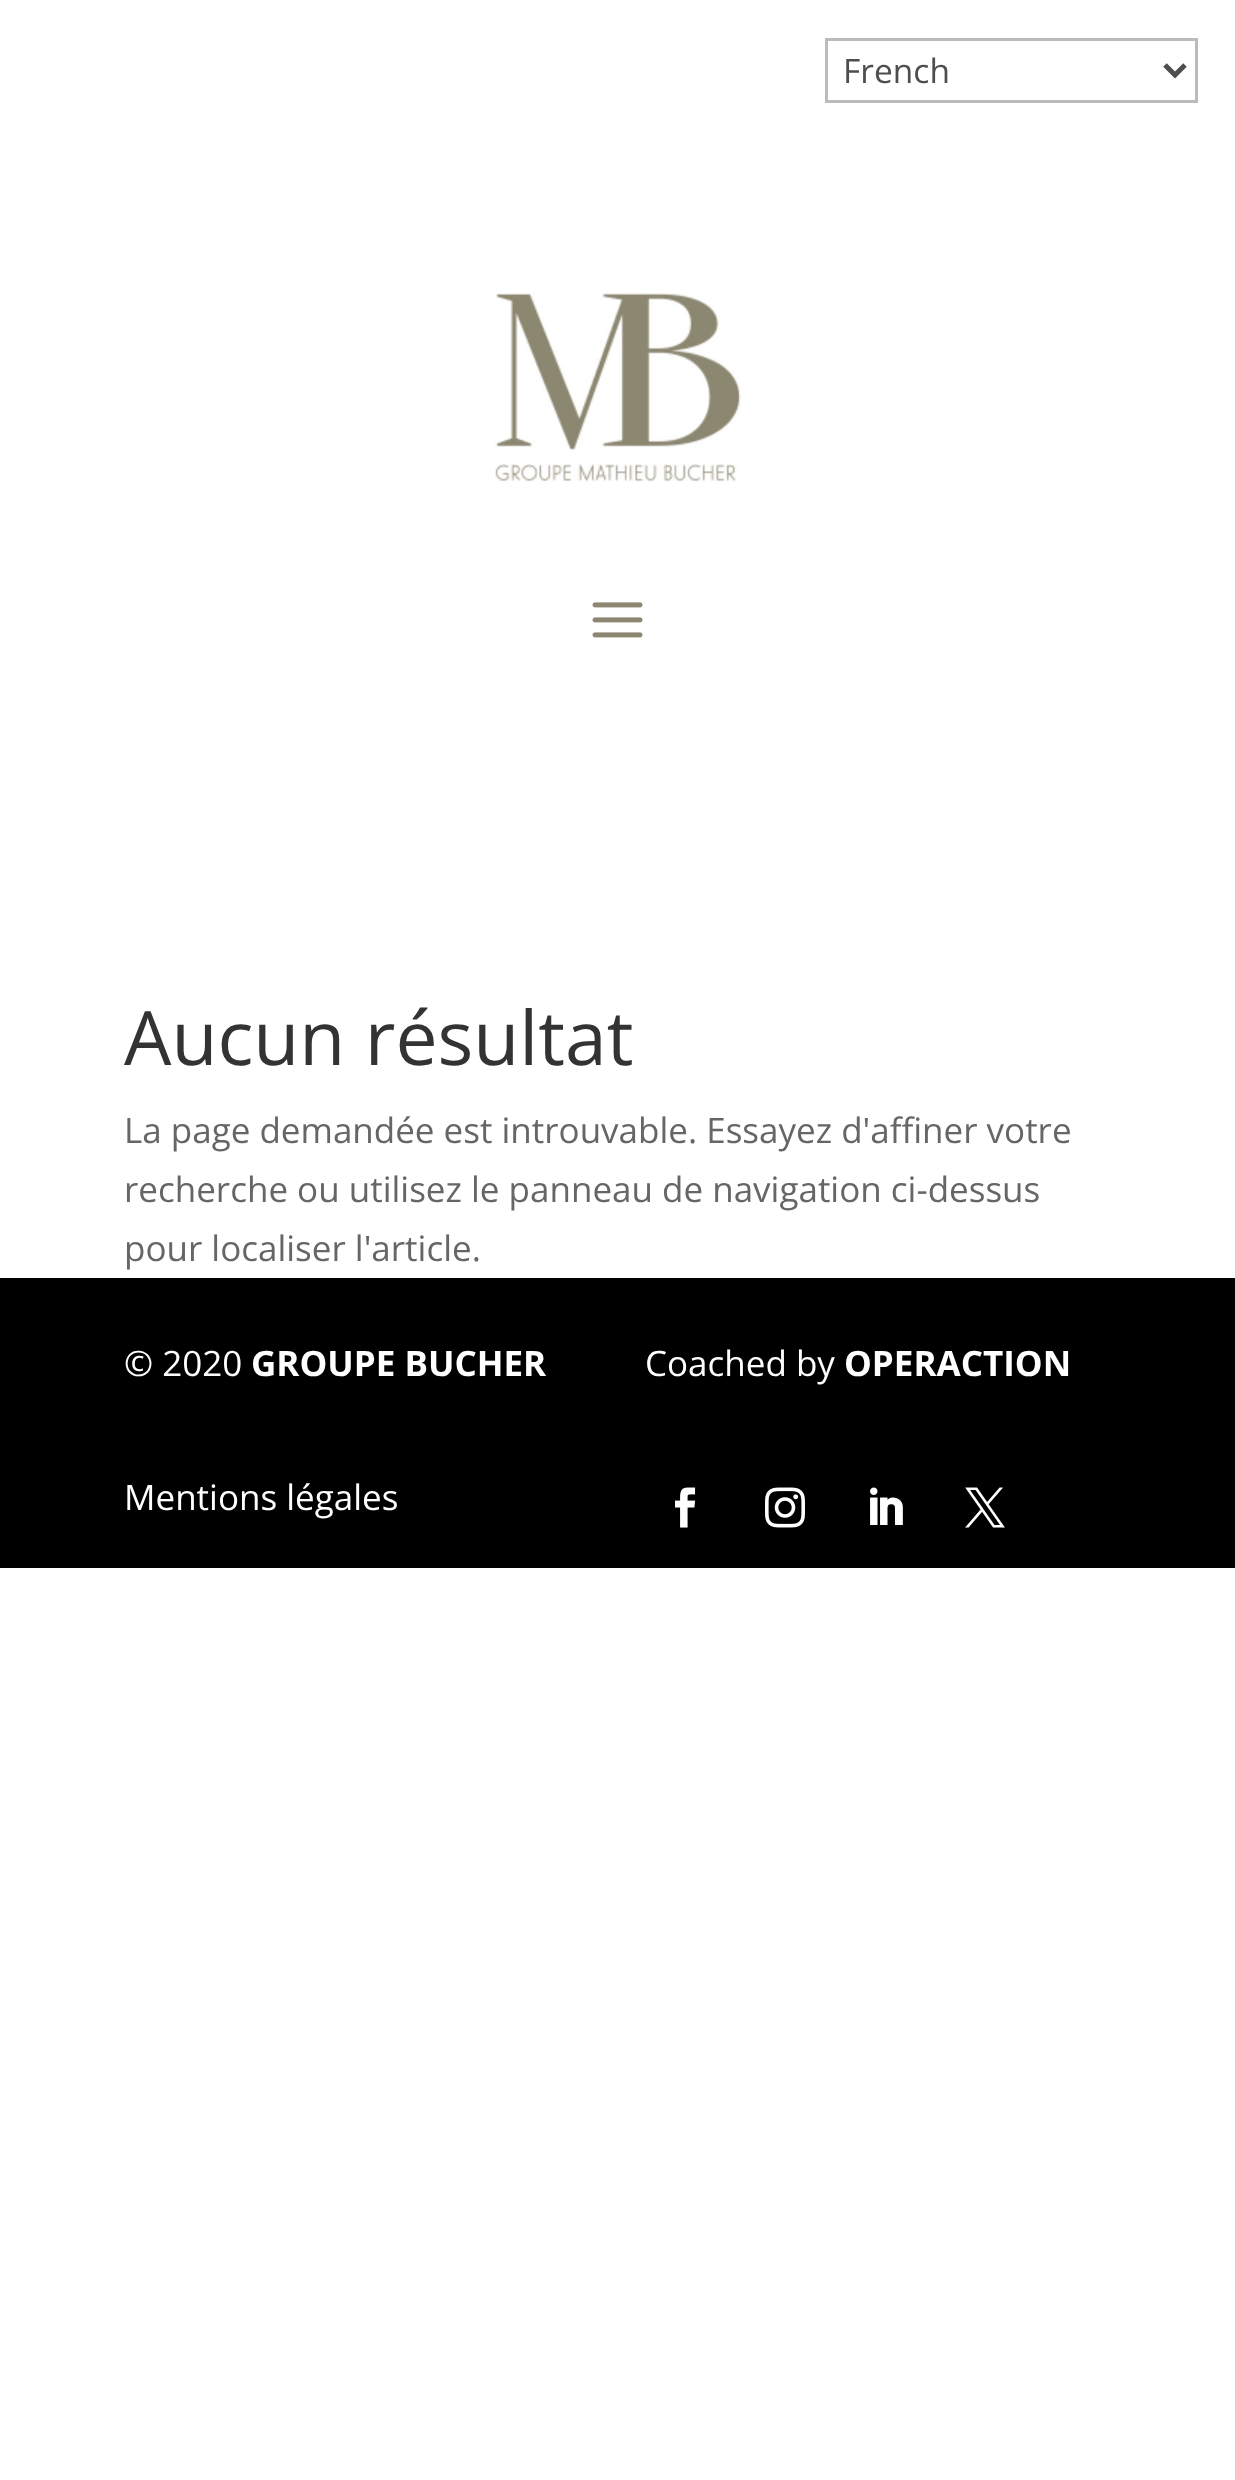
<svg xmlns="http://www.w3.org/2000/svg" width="1235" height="2480">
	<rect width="100%" height="100%" fill="#FFFFFF" />
	<rect x="826.5" y="39.5" width="370" height="62" fill="none" stroke="#BBBBBB" stroke-width="3" />
	<path d="M1165 65L1175 75L1185 65" fill="none" stroke="#4E4E4E" stroke-width="5" />
	<text x="843" y="83" font-family="Open Sans" font-size="33.5" fill="#4E4E4E">French</text>
	<image x="495" y="292" width="246" height="190" href="assets/img1.png" />
	<image x="592" y="602" width="51" height="36" href="assets/img2.png" />
	<text x="124" y="1065" font-family="Open Sans" font-size="75" fill="#333333">Aucun résultat</text>
	<g font-family="Open Sans" font-size="35" fill="#666666">
		<text x="124" y="1143">La page demandée est introuvable. Essayez d'affiner votre</text>
		<text x="124" y="1202">recherche ou utilisez le panneau de navigation ci-dessus</text>
		<text x="124" y="1261">pour localiser l'article.</text>
	</g>
	<rect x="0" y="1278" width="1235" height="290" fill="#000000" />
	<text x="124" y="1376" font-family="Open Sans" font-size="35" fill="#FFFFFF">© 2020</text>
	<text x="251" y="1376" font-family="Open Sans" font-size="35" font-weight="700" fill="#FFFFFF">GROUPE BUCHER</text>
	<text x="645" y="1376" font-family="Open Sans" font-size="35" fill="#FFFFFF">Coached by</text>
	<text x="844" y="1376" font-family="Open Sans" font-size="35" font-weight="700" fill="#FFFFFF">OPERACTION</text>
	<text x="124" y="1510" font-family="Open Sans" font-size="35" fill="#FFFFFF">Mentions légales</text>
	<image x="675" y="1487" width="21" height="41" href="assets/img3.png" />
	<image x="765" y="1487" width="40" height="41" href="assets/img4.png" />
	<image x="870" y="1487" width="33" height="38" href="assets/img5.png" />
	<image x="965" y="1487" width="40" height="41" href="assets/img6.png" />
</svg>
